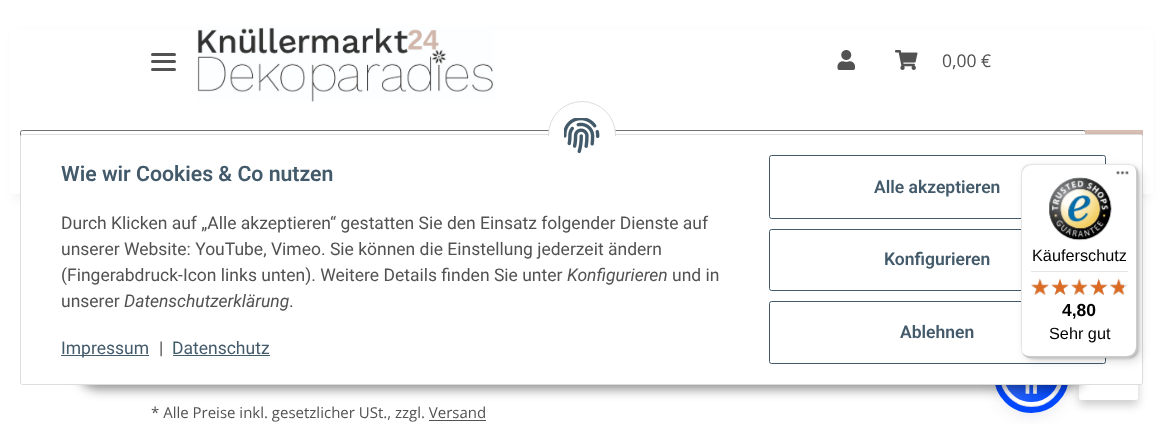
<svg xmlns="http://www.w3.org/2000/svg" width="1162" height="424">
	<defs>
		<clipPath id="clip1"><rect x="1000" y="344" width="63" height="62" rx="31" /></clipPath>
		<linearGradient id="g1" gradientUnits="userSpaceOnUse" x1="1001" y1="372" x2="1061" y2="378"><stop offset="0" stop-color="#326CFF" /><stop offset="1" stop-color="#0048FF" /></linearGradient>
	</defs>
	<rect width="100%" height="100%" fill="#FFFFFF" />
	<rect x="15" y="35" width="1133" height="164" fill="#000000" fill-opacity="0.06" filter="blur(5.5px)" />
	<rect x="10" y="30" width="1143" height="164" fill="#FFFFFF" />
	<rect x="151" y="60" width="25" height="3" rx="1.5" fill="#525252" />
	<rect x="151" y="53" width="25" height="3" rx="1.5" fill="#525252" />
	<rect x="151" y="68" width="25" height="3" rx="1.5" fill="#525252" />
	<image x="197" y="27" width="297" height="75" href="assets/img1.png" />
	<image x="837" y="50" width="18" height="20" href="assets/img2.png" />
	<image x="895" y="50" width="23" height="20" href="assets/img3.png" />
	<text x="942" y="67" font-family="Open Sans" font-size="17.5" fill="#525252">0,00 €</text>
	<rect x="20.5" y="130.5" width="1065" height="53" rx="2" fill="none" stroke="#707070" />
	<rect x="1085" y="130" width="58" height="7" fill="#D4B9AE" />
	<rect x="1086" y="131" width="55" height="1" fill="#DAC4BA" />
	<rect x="1000" y="346" width="63" height="63" rx="31.5" fill="#5D6494" fill-opacity="0.2" filter="blur(2.5px)" />
	<rect x="1000" y="350" width="63" height="63" rx="31.5" fill="#252C61" fill-opacity="0.15" filter="blur(9.5px)" />
	<g clip-path="url(#clip1)">
		<rect x="1004" y="385" width="55" height="18" fill="url(#g1)" />
	</g>
	<rect x="1002" y="346" width="59" height="58" rx="29" fill="none" stroke="#FFFFFF" stroke-width="4" />
	<circle cx="1031.5" cy="375.5" r="34.5" fill="none" stroke="#0048FF" stroke-width="6" />
	<rect x="1079" y="350" width="59" height="55" rx="2.5" fill="#000000" fill-opacity="0.2" filter="blur(5px)" />
	<rect x="1079" y="345" width="59" height="55" rx="2.5" fill="#FFFFFF" />
	<image x="1025" y="385" width="12" height="9" href="assets/img17.png" />
	<rect x="78" y="349" width="1007" height="40" rx="20" fill="#000000" fill-opacity="0.45" filter="blur(6px)" />
	<rect x="20.5" y="134.5" width="1122" height="250" rx="2" fill="#FFFFFF" stroke="#DDDDDD" />
	<rect x="548.5" y="101.5" width="67" height="68" rx="33.5" fill="#FFFFFF" stroke="#DDDDDD" />
	<rect x="548" y="136" width="68" height="34" fill="#FFFFFF" />
	<image x="564" y="118" width="36" height="36" href="assets/img4.png" />
	<text x="61" y="181" font-family="Roboto" font-size="21.25" font-weight="600" fill="#435A6B">Wie wir Cookies &amp; Co nutzen</text>
	<g font-family="Roboto" font-size="17.5" fill="#525252">
		<text x="61" y="229">Durch Klicken auf „Alle akzeptieren“ gestatten Sie den Einsatz folgender Dienste auf</text>
		<text x="61" y="255">unserer Website: YouTube, Vimeo. Sie können die Einstellung jederzeit ändern</text>
		<text x="61" y="281">(Fingerabdruck-Icon links unten). Weitere Details finden Sie unter</text>
	</g>
	<text x="567" y="281" font-family="Roboto" font-size="17.5" font-style="italic" fill="#525252">Konfigurieren</text>
	<g font-family="Roboto" font-size="17.5" fill="#525252">
		<text x="672" y="281">und in</text>
		<text x="61" y="307">unserer</text>
	</g>
	<text x="124" y="307" font-family="Roboto" font-size="17.5" font-style="italic" fill="#525252">Datenschutzerklärung</text>
	<text x="289" y="307" font-family="Roboto" font-size="17.5" fill="#525252">.</text>
	<rect x="61" y="355" width="88" height="1" fill="#435A6B" />
	<text x="61" y="354" font-family="Roboto" font-size="17.5" fill="#435A6B">Impressum</text>
	<text x="159" y="354" font-family="Roboto" font-size="17.5" fill="#525252">|</text>
	<text x="172" y="354" font-family="Roboto" font-size="17.5" fill="#435A6B">Datenschutz</text>
	<rect x="173" y="355" width="97" height="1" fill="#435A6B" />
	<rect x="769.5" y="155.5" width="336" height="63" rx="2" fill="none" stroke="#435A6B" />
	<text x="874" y="193" font-family="Roboto" font-size="17.5" font-weight="600" fill="#435A6B">Alle akzeptieren</text>
	<rect x="769.5" y="229.5" width="336" height="61" rx="2" fill="none" stroke="#435A6B" />
	<text x="884" y="265" font-family="Roboto" font-size="17.5" font-weight="600" fill="#435A6B">Konfigurieren</text>
	<rect x="769.5" y="301.5" width="336" height="62" rx="2" fill="none" stroke="#435A6B" />
	<text x="900" y="338" font-family="Roboto" font-size="17.5" font-weight="600" fill="#435A6B">Ablehnen</text>
	<rect x="1025" y="168" width="116" height="193" rx="10" fill="#000000" fill-opacity="0.15" filter="blur(5px)" />
	<rect x="1023" y="165" width="116" height="194" rx="10" fill="#000000" fill-opacity="0.15" filter="blur(1px)" />
	<rect x="1021" y="164" width="117" height="194" rx="10" fill="#FFFFFF" />
	<path d="M1032 165H1129C1131 165 1134 166 1136 168C1134 165 1131 164 1128 164H1031C1025 164 1021 168 1021 174V348C1021 352 1023 355 1026 357C1024 355 1022 352 1022 349V175C1022 169 1027 165 1032 165Z" fill="#000000" fill-opacity="0.1" />
	<path d="M1022 352C1024 356 1027 358 1031 358H1128C1134 358 1138 354 1138 348V174C1138 171 1136 168 1134 166C1135 168 1136 170 1136 172V346C1136 352 1132 356 1126 356H1030C1027 356 1024 355 1022 352Z" fill="#000000" fill-opacity="0.2" />
	<path d="M1022 353C1024 356 1027 358 1031 358H1128C1134 358 1138 354 1138 348V174C1138 171 1137 168 1135 166C1136 168 1137 170 1137 173V347C1137 352 1132 357 1127 357H1030C1027 357 1024 355 1022 353Z" fill="#323232" fill-opacity="0.2" />
	<path d="M1021 347V348C1021 354 1025 358 1031 358H1128C1134 358 1138 354 1138 348V174C1138 170 1136 167 1133 165C1135 167 1137 170 1137 173V347C1137 352 1132 357 1127 357H1031C1025 357 1021 352 1021 347Z" fill="#FFFFFF" fill-opacity="0.3" />
	<image x="1116" y="171" width="13" height="4" href="assets/img5.png" />
	<image x="1049" y="177" width="63" height="64" href="assets/img6.png" />
	<text x="1032" y="261" font-family="Liberation Sans" font-size="16.25" fill="#000000">Käuferschutz</text>
	<rect x="1031" y="271" width="97" height="1" fill="#E5E5E5" />
	<image x="1031" y="279" width="18" height="16" href="assets/img7.png" />
	<image x="1052" y="279" width="16" height="16" href="assets/img8.png" />
	<image x="1071" y="279" width="17" height="16" href="assets/img9.png" />
	<image x="1090" y="278" width="17" height="17" href="assets/img10.png" />
	<image x="1110" y="279" width="18" height="16" href="assets/img11.png" />
	<image x="1031" y="278" width="18" height="17" href="assets/img12.png" />
	<image x="1051" y="278" width="18" height="17" href="assets/img13.png" />
	<image x="1071" y="278" width="17" height="17" href="assets/img14.png" />
	<image x="1090" y="278" width="17" height="17" href="assets/img15.png" />
	<image x="1110" y="278" width="14" height="17" href="assets/img16.png" />
	<text x="1062" y="316" font-family="Liberation Sans" font-size="17.5" font-weight="700" fill="#000000">4,80</text>
	<text x="1049" y="339" font-family="Liberation Sans" font-size="16.25" fill="#000000">Sehr gut</text>
	<text x="151" y="418" font-family="Open Sans" font-size="15" fill="#525252">* Alle Preise inkl. gesetzlicher USt., zzgl. Versand</text>
	<rect x="429" y="420" width="57" height="1" fill="#525252" />
</svg>
